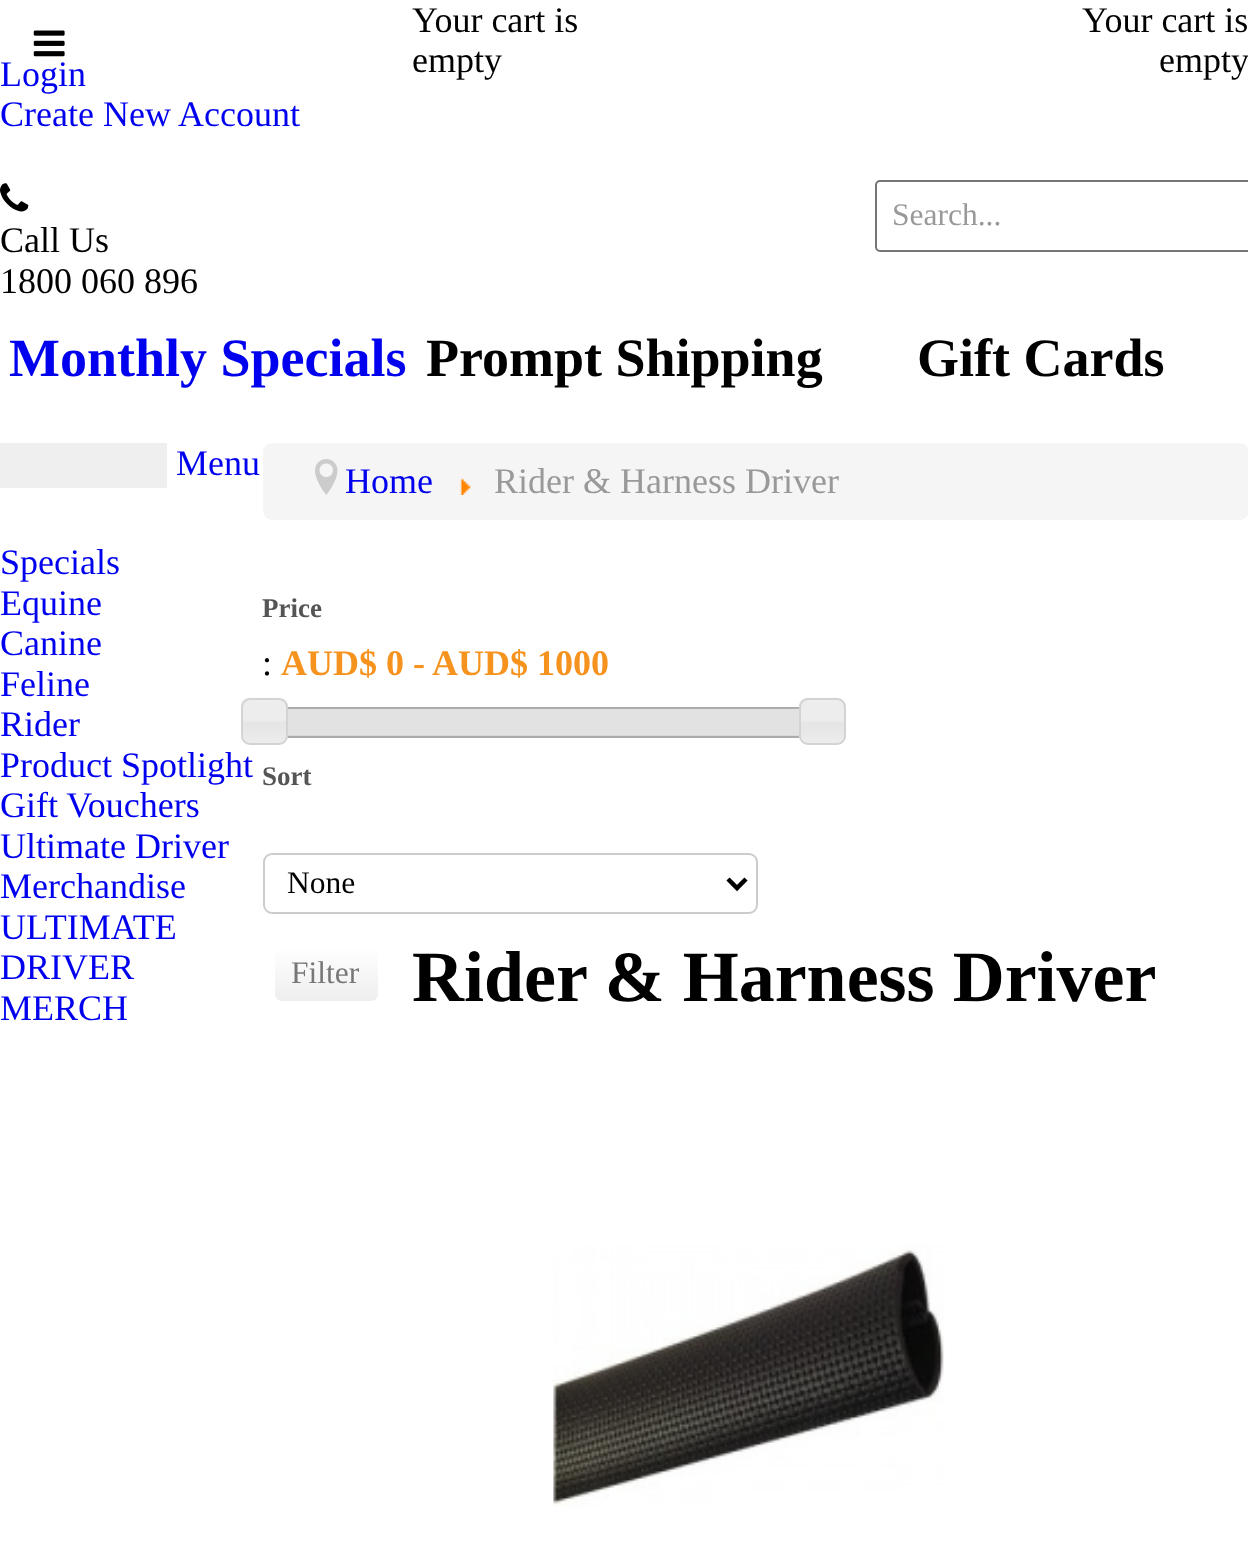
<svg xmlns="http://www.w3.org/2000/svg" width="1248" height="1564">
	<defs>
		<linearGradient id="g1" gradientUnits="userSpaceOnUse" x1="326" y1="947" x2="326" y2="1001"><stop offset="0" stop-color="#FFFFFF" /><stop offset="1" stop-color="#EEEEEE" /></linearGradient>
	</defs>
	<rect width="100%" height="100%" fill="#FFFFFF" />
	<g font-family="Liberation Serif" font-size="36" fill="#000000">
		<text x="412" y="32">Your cart is</text>
		<text x="412" y="72">empty</text>
		<text x="1082" y="32">Your cart is</text>
		<text x="1159" y="72">empty</text>
	</g>
	<g font-family="Liberation Serif" font-size="36" fill="#0000EE">
		<text x="0" y="86">Login</text>
		<text x="0" y="126">Create New Account</text>
	</g>
	<image x="33" y="30" width="32" height="27" href="assets/img1.png" />
	<rect x="876" y="181" width="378" height="70" rx="4" fill="none" stroke="#767676" stroke-width="2" />
	<text x="892" y="225" font-family="Liberation Serif" font-size="31.5" fill="#999999">Search...</text>
	<image x="0" y="183" width="29" height="29" href="assets/img2.png" />
	<g font-family="Liberation Serif" font-size="36" fill="#000000">
		<text x="0" y="252">Call Us</text>
		<text x="0" y="293">1800 060 896</text>
	</g>
	<text x="9" y="376" font-family="Liberation Serif" font-size="54" font-weight="700" fill="#0000EE">Monthly Specials</text>
	<g font-family="Liberation Serif" font-size="54" font-weight="700" fill="#000000">
		<text x="426" y="376">Prompt Shipping</text>
		<text x="917" y="376">Gift Cards</text>
	</g>
	<rect x="0" y="443" width="167" height="45" fill="#EFEFEF" />
	<g font-family="Liberation Serif" font-size="36" fill="#0000EE">
		<text x="176" y="475">Menu</text>
		<text x="0" y="574">Specials</text>
		<text x="0" y="615">Equine</text>
		<text x="0" y="655">Canine</text>
		<text x="0" y="696">Feline</text>
		<text x="0" y="736">Rider</text>
		<text x="0" y="777">Product Spotlight</text>
		<text x="0" y="817">Gift Vouchers</text>
		<text x="0" y="858">Ultimate Driver</text>
		<text x="0" y="898">Merchandise</text>
		<text x="0" y="939">ULTIMATE</text>
		<text x="0" y="979">DRIVER</text>
		<text x="0" y="1020">MERCH</text>
	</g>
	<rect x="263" y="443" width="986" height="77" rx="9" fill="#F5F5F5" />
	<image x="315" y="459" width="23" height="36" href="assets/img3.png" />
	<text x="345" y="493" font-family="Liberation Serif" font-size="36" fill="#0000EE">Home</text>
	<image x="460" y="478" width="11" height="17" href="assets/img4.png" />
	<text x="494" y="493" font-family="Liberation Serif" font-size="36" fill="#999999">Rider &amp; Harness Driver</text>
	<text x="262" y="617" font-family="Liberation Serif" font-size="27" font-weight="700" fill="#555555">Price</text>
	<text x="262" y="675" font-family="Liberation Serif" font-size="36" fill="#000000">:</text>
	<text x="281" y="675" font-family="Liberation Serif" font-size="36" font-weight="700" fill="#F6931F">AUD$ 0 - AUD$ 1000</text>
	<rect x="264" y="708" width="561" height="29" fill="none" stroke="#AAAAAA" stroke-width="2" />
	<image x="241" y="697" width="47" height="47" href="assets/img5.png" />
	<rect x="242" y="699" width="45" height="45" rx="8" fill="none" stroke="#D3D3D3" stroke-width="2" />
	<rect x="288" y="735" width="511" height="1" fill="#CCCCCC" />
	<image x="288" y="708" width="511" height="28" href="assets/img6.png" />
	<image x="798" y="697" width="48" height="47" href="assets/img7.png" />
	<rect x="800" y="699" width="45" height="45" rx="8" fill="none" stroke="#D3D3D3" stroke-width="2" />
	<text x="262" y="785" font-family="Liberation Serif" font-size="27" font-weight="700" fill="#555555">Sort</text>
	<rect x="264" y="854" width="493" height="59" rx="8" fill="none" stroke="#CCCCCC" stroke-width="2" />
	<path d="M728 879L737 888L746 879" fill="none" stroke="#000000" stroke-width="4.5" />
	<text x="287" y="893" font-family="Liberation Serif" font-size="31.5" fill="#000000">None</text>
	<rect x="275" y="947" width="103" height="54" rx="7" fill="url(#g1)" />
	<text x="291" y="983" font-family="Liberation Serif" font-size="31.5" fill="#777777">Filter</text>
	<text x="412" y="1001" font-family="Liberation Serif" font-size="72" font-weight="700" fill="#000000">Rider &amp; Harness Driver</text>
	<image x="553" y="1245" width="392" height="262" href="assets/img8.png" />
</svg>
